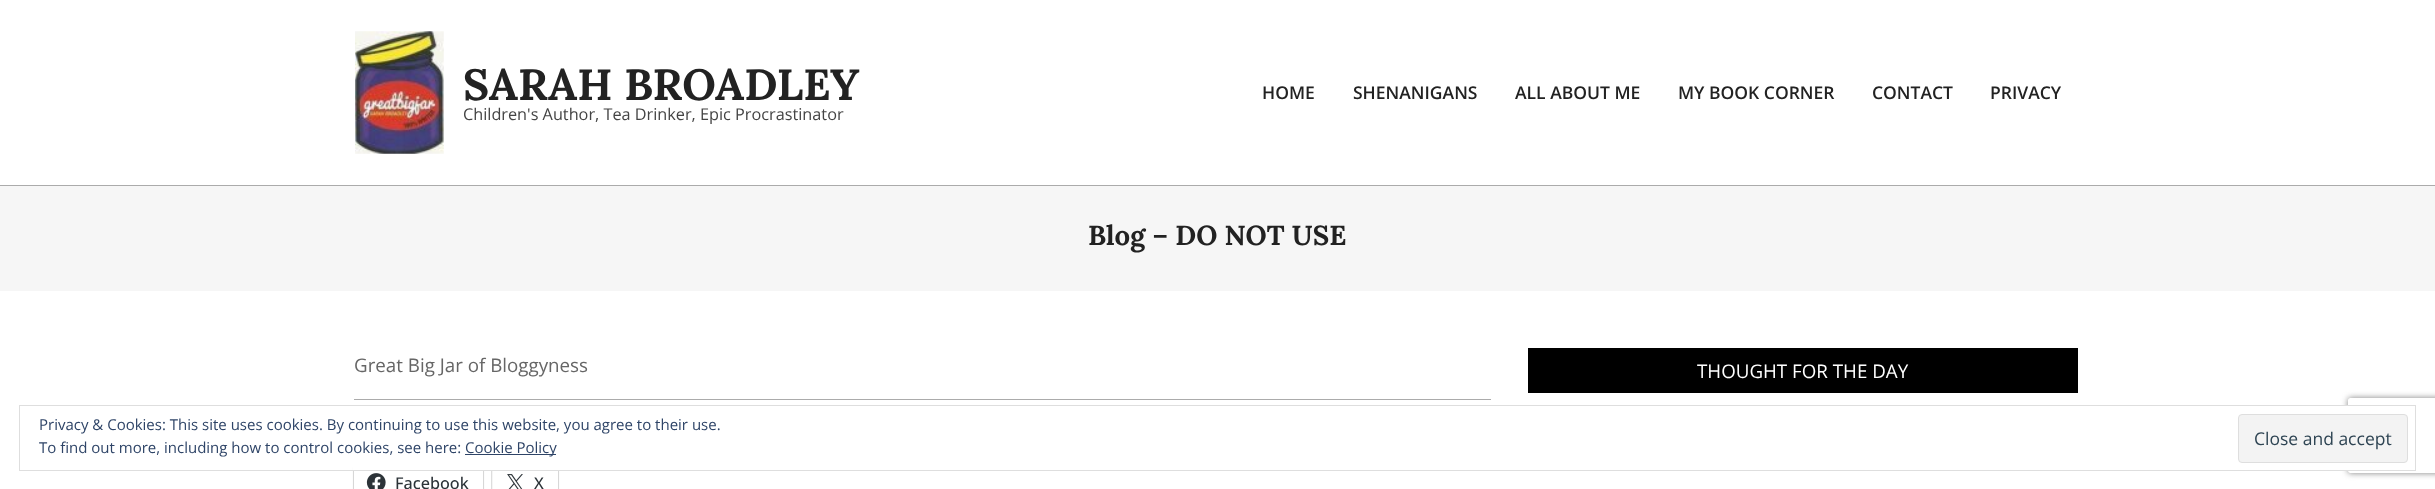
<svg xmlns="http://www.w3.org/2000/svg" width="2435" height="489">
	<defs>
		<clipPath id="clip1"><path d="M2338 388H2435V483H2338ZM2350.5 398H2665.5C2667 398 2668 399 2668 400.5V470.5C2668 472 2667 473 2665.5 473H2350.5C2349 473 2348 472 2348 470.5V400.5C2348 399 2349 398 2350.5 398Z" clip-rule="evenodd" /></clipPath>
	</defs>
	<rect width="100%" height="100%" fill="#FFFFFF" />
	<rect x="0" y="185" width="2435" height="1" fill="#ABABAB" />
	<image x="355" y="31" width="89" height="123" href="assets/img1.png" />
	<text x="463" y="100" font-family="Lora" font-size="43.75" font-weight="700" fill="#222222">SARAH BROADLEY</text>
	<text x="463" y="120" font-family="Open Sans" font-size="16.25" fill="#444444">Children's Author, Tea Drinker, Epic Procrastinator</text>
	<g font-family="Open Sans" font-size="17.5" font-weight="600" fill="#222222">
		<text x="1262" y="99">HOME</text>
		<text x="1353" y="99">SHENANIGANS</text>
		<text x="1515" y="99">ALL ABOUT ME</text>
		<text x="1678" y="99">MY BOOK CORNER</text>
		<text x="1872" y="99">CONTACT</text>
		<text x="1990" y="99">PRIVACY</text>
	</g>
	<rect x="0" y="186" width="2435" height="105" fill="#F6F6F6" />
	<text x="1088" y="245" font-family="Lora" font-size="27.5" font-weight="700" fill="#222222">Blog – DO NOT USE</text>
	<text x="354" y="372" font-family="Open Sans" font-size="18.75" fill="#666666">Great Big Jar of Bloggyness</text>
	<rect x="354" y="399" width="1137" height="1" fill="#ABABAB" />
	<rect x="353.5" y="463.5" width="130" height="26" fill="none" stroke="#E0E0E0" />
	<rect x="354" y="465" width="129" height="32" rx="5" fill="#000000" fill-opacity="0.12" filter="blur(1px)" />
	<rect x="354" y="471" width="129" height="18" fill="#FFFFFF" />
	<image x="366" y="473" width="20" height="16" href="assets/img2.png" />
	<text x="395" y="489" font-family="Open Sans" font-size="16.25" font-weight="500" fill="#2C3338">Facebook</text>
	<rect x="491.5" y="463.5" width="67" height="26" fill="none" stroke="#E0E0E0" />
	<rect x="493" y="465" width="65" height="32" rx="5" fill="#000000" fill-opacity="0.12" filter="blur(1px)" />
	<rect x="493" y="471" width="65" height="18" fill="#FFFFFF" />
	<image x="507" y="474" width="16" height="15" href="assets/img3.png" />
	<text x="534" y="489" font-family="Open Sans" font-size="16.25" font-weight="500" fill="#2C3338">X</text>
	<rect x="1528" y="348" width="550" height="45" fill="#000000" />
	<text x="1697" y="378" font-family="Open Sans" font-size="18.75" fill="#FFFFFF">THOUGHT FOR THE DAY</text>
	<g clip-path="url(#clip1)">
		<rect x="2348" y="398" width="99" height="75" rx="2.5" fill="#808080" filter="blur(3px)" />
	</g>
	<rect x="353" y="406" width="1995" height="64" fill="#FFFFFF" />
	<rect x="19.5" y="405.5" width="2396" height="65" fill="none" stroke="#DEDEDE" />
	<g font-family="Open Sans" font-size="15" fill="#2E4467">
		<text x="39" y="430">Privacy &amp; Cookies: This site uses cookies. By continuing to use this website, you agree to their use.</text>
		<text x="39" y="453">To find out more, including how to control cookies, see here:</text>
	</g>
	<rect x="465" y="454" width="91" height="1" fill="#2E4467" />
	<text x="465" y="453" font-family="Open Sans" font-size="15" fill="#2E4467">Cookie Policy</text>
	<rect x="2238.5" y="414.5" width="169" height="48" rx="3.5" fill="#F3F3F3" stroke="#DEDEDE" />
	<text x="2254" y="445" font-family="Open Sans" font-size="17.5" fill="#2E4453">Close and accept</text>
</svg>
